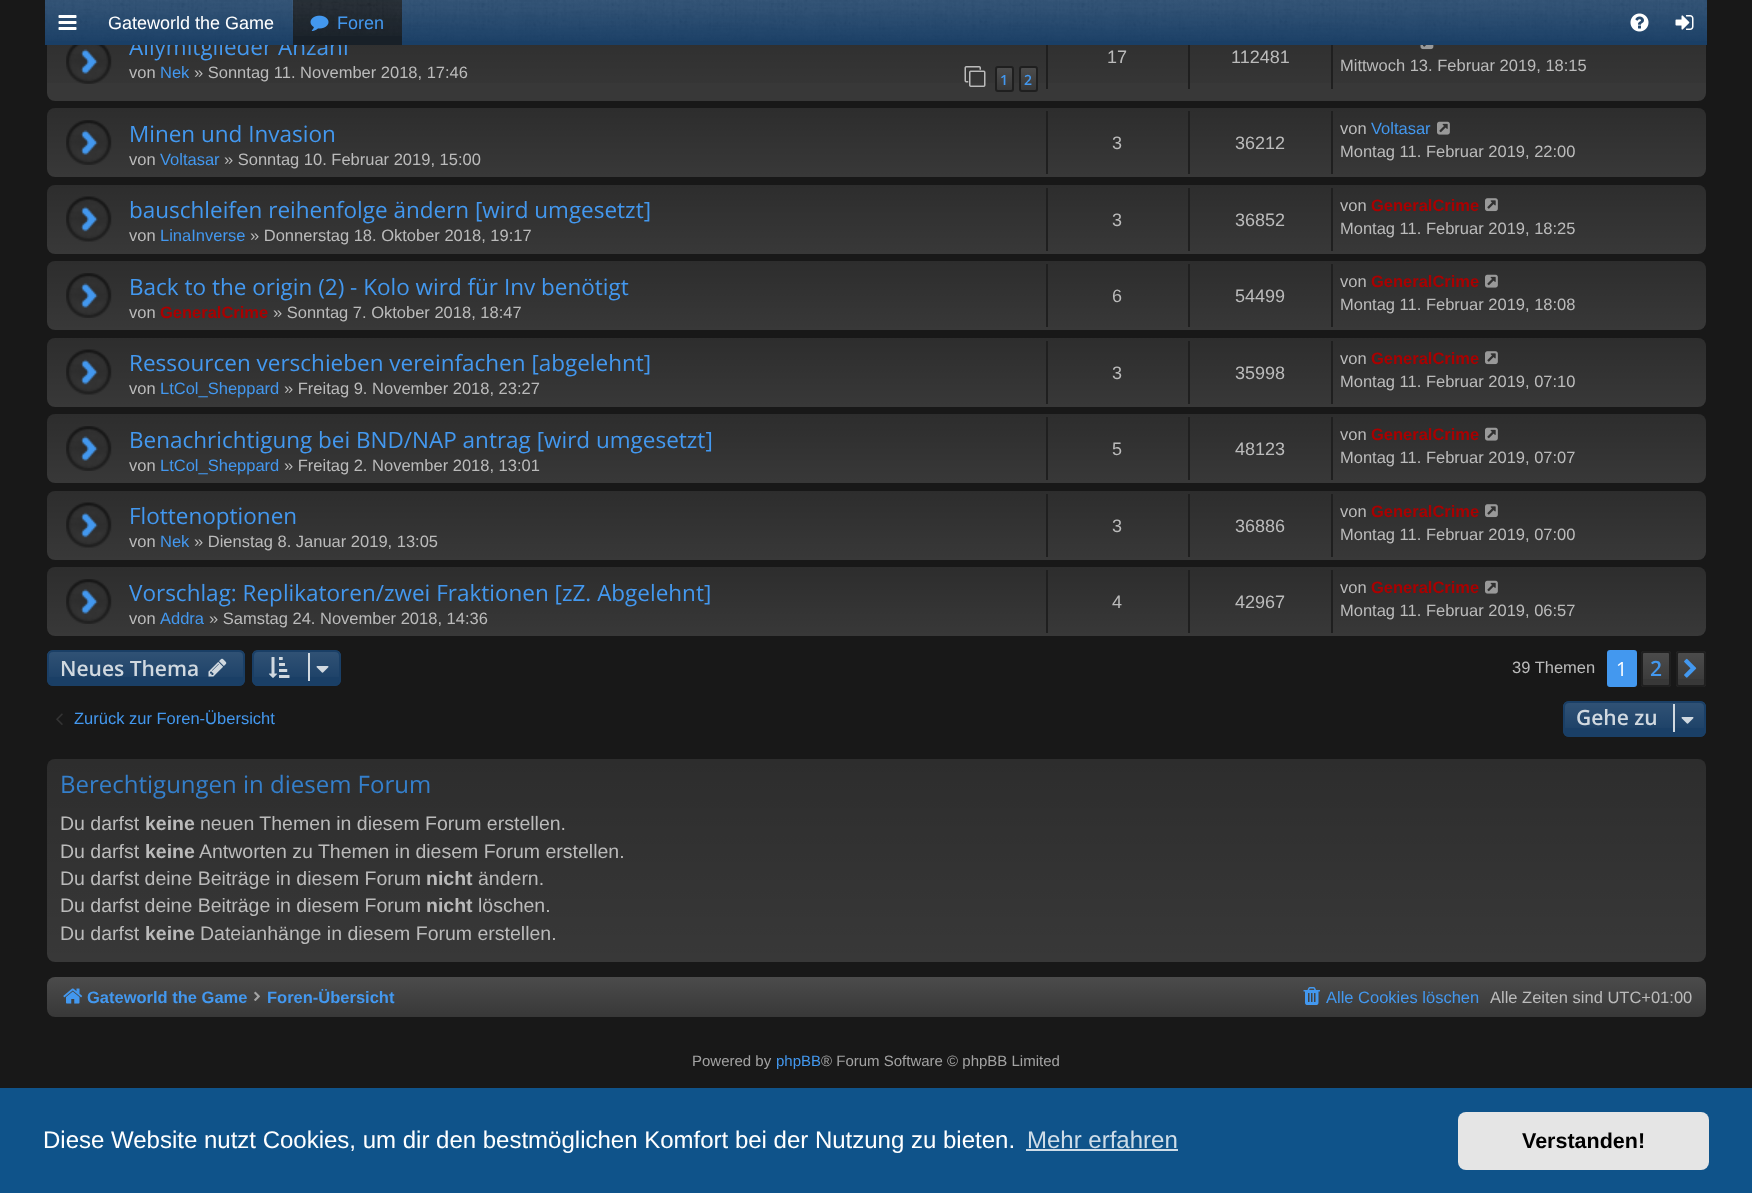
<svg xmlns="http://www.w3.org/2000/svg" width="1752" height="1193">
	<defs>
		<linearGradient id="g1" gradientUnits="userSpaceOnUse" x1="876" y1="22" x2="876" y2="101"><stop offset="0" stop-color="#000000" stop-opacity="0.2" /><stop offset="1" stop-color="#000000" stop-opacity="0" /></linearGradient>
		<clipPath id="clip1"><rect x="995" y="66" width="19" height="26" rx="3" /></clipPath>
		<linearGradient id="g2" gradientUnits="userSpaceOnUse" x1="1004" y1="68" x2="1004" y2="90"><stop offset="0" stop-color="#4C4C4C" /><stop offset="1" stop-color="#383838" /></linearGradient>
		<clipPath id="clip2"><rect x="1019" y="66" width="19" height="26" rx="3" /></clipPath>
		<linearGradient id="g3" gradientUnits="userSpaceOnUse" x1="1028" y1="68" x2="1028" y2="90"><stop offset="0" stop-color="#4C4C4C" /><stop offset="1" stop-color="#383838" /></linearGradient>
		<linearGradient id="g4" gradientUnits="userSpaceOnUse" x1="876" y1="108" x2="876" y2="177"><stop offset="0" stop-color="#000000" stop-opacity="0.2" /><stop offset="1" stop-color="#000000" stop-opacity="0" /></linearGradient>
		<linearGradient id="g5" gradientUnits="userSpaceOnUse" x1="876" y1="184" x2="876" y2="254"><stop offset="0" stop-color="#000000" stop-opacity="0.2" /><stop offset="1" stop-color="#000000" stop-opacity="0" /></linearGradient>
		<linearGradient id="g6" gradientUnits="userSpaceOnUse" x1="876" y1="261" x2="876" y2="330"><stop offset="0" stop-color="#000000" stop-opacity="0.2" /><stop offset="1" stop-color="#000000" stop-opacity="0" /></linearGradient>
		<linearGradient id="g7" gradientUnits="userSpaceOnUse" x1="876" y1="337" x2="876" y2="407"><stop offset="0" stop-color="#000000" stop-opacity="0.2" /><stop offset="1" stop-color="#000000" stop-opacity="0" /></linearGradient>
		<linearGradient id="g8" gradientUnits="userSpaceOnUse" x1="876" y1="414" x2="876" y2="483"><stop offset="0" stop-color="#000000" stop-opacity="0.2" /><stop offset="1" stop-color="#000000" stop-opacity="0" /></linearGradient>
		<linearGradient id="g9" gradientUnits="userSpaceOnUse" x1="876" y1="490" x2="876" y2="560"><stop offset="0" stop-color="#000000" stop-opacity="0.2" /><stop offset="1" stop-color="#000000" stop-opacity="0" /></linearGradient>
		<linearGradient id="g10" gradientUnits="userSpaceOnUse" x1="876" y1="567" x2="876" y2="636"><stop offset="0" stop-color="#000000" stop-opacity="0.2" /><stop offset="1" stop-color="#000000" stop-opacity="0" /></linearGradient>
		<clipPath id="clip3"><rect x="47" y="650" width="198" height="36" rx="6" /></clipPath>
		<linearGradient id="g11" gradientUnits="userSpaceOnUse" x1="146" y1="651" x2="146" y2="684"><stop offset="0" stop-color="#FFFFFF" stop-opacity="0.1" /><stop offset="1" stop-color="#FFFFFF" stop-opacity="0" /></linearGradient>
		<clipPath id="clip4"><rect x="252" y="650" width="89" height="36" rx="6" /></clipPath>
		<linearGradient id="g12" gradientUnits="userSpaceOnUse" x1="296" y1="651" x2="296" y2="684"><stop offset="0" stop-color="#FFFFFF" stop-opacity="0.1" /><stop offset="1" stop-color="#FFFFFF" stop-opacity="0" /></linearGradient>
		<linearGradient id="g13" gradientUnits="userSpaceOnUse" x1="1656" y1="653" x2="1656" y2="686"><stop offset="0" stop-color="#FFFFFF" stop-opacity="0.1" /><stop offset="1" stop-color="#FFFFFF" stop-opacity="0" /></linearGradient>
		<linearGradient id="g14" gradientUnits="userSpaceOnUse" x1="1691" y1="653" x2="1691" y2="686"><stop offset="0" stop-color="#FFFFFF" stop-opacity="0.1" /><stop offset="1" stop-color="#FFFFFF" stop-opacity="0" /></linearGradient>
		<clipPath id="clip5"><rect x="1563" y="701" width="143" height="36" rx="6" /></clipPath>
		<linearGradient id="g15" gradientUnits="userSpaceOnUse" x1="1634" y1="702" x2="1634" y2="735"><stop offset="0" stop-color="#FFFFFF" stop-opacity="0.1" /><stop offset="1" stop-color="#FFFFFF" stop-opacity="0" /></linearGradient>
		<linearGradient id="g16" gradientUnits="userSpaceOnUse" x1="876" y1="759" x2="876" y2="962"><stop offset="0" stop-color="#000000" stop-opacity="0.2" /><stop offset="1" stop-color="#000000" stop-opacity="0" /></linearGradient>
		<linearGradient id="g17" gradientUnits="userSpaceOnUse" x1="876" y1="976" x2="876" y2="1017"><stop offset="0" stop-color="#FFFFFF" stop-opacity="0.1" /><stop offset="1" stop-color="#FFFFFF" stop-opacity="0" /></linearGradient>
	</defs>
	<rect width="100%" height="100%" fill="#181818" />
	<rect x="47" y="23" width="1659" height="78" rx="8" fill="#383838" />
	<rect x="47" y="45" width="1659" height="38" fill="url(#g1)" />
	<text x="129" y="55" font-family="Open Sans" font-size="22.5" fill="#4398EF">Allymitglieder Anzahl</text>
	<rect x="45" y="0" width="1662" height="45" fill="#1A3F66" />
	<image x="45" y="0" width="1662" height="41" href="assets/img1.png" />
	<image x="58" y="15" width="19" height="15" href="assets/img2.png" />
	<text x="108" y="29" font-family="Liberation Sans" font-size="18" fill="#FFFFFF">Gateworld the Game</text>
	<rect x="293" y="0" width="109" height="45" fill="#182028" />
	<image x="292" y="0" width="110" height="36" href="assets/img3.png" />
	<image x="310" y="15" width="19" height="16" href="assets/img4.png" />
	<text x="337" y="29" font-family="Liberation Sans" font-size="18" fill="#4398EF">Foren</text>
	<image x="1630" y="13" width="19" height="19" href="assets/img5.png" />
	<image x="1675" y="15" width="19" height="15" href="assets/img6.png" />
	<image x="66" y="45" width="46" height="39" href="assets/img7.png" />
	<text x="129" y="78" font-family="Liberation Sans" font-size="16.5" fill="#BBBBBB">von</text>
	<text x="160" y="78" font-family="Liberation Sans" font-size="16.5" fill="#4398EF">Nek</text>
	<text x="194" y="78" font-family="Liberation Sans" font-size="16.5" fill="#BBBBBB">» Sonntag 11. November 2018, 17:46</text>
	<image x="964" y="66" width="22" height="21" href="assets/img8.png" />
	<g clip-path="url(#clip1)">
		<rect x="995" y="68" width="19" height="22" fill="url(#g2)" />
	</g>
	<rect x="996" y="67" width="17" height="24" rx="2" fill="none" stroke="#1F1F1F" stroke-width="2" />
	<text x="1000" y="85" font-family="Open Sans" font-size="14" font-weight="600" fill="#4398EF">1</text>
	<g clip-path="url(#clip2)">
		<rect x="1019" y="68" width="19" height="22" fill="url(#g3)" />
	</g>
	<rect x="1020" y="67" width="17" height="24" rx="2" fill="none" stroke="#1F1F1F" stroke-width="2" />
	<text x="1024" y="85" font-family="Open Sans" font-size="14" font-weight="600" fill="#4398EF">2</text>
	<rect x="1046" y="45" width="2" height="44" fill="#1F1F1F" />
	<text x="1107" y="63" font-family="Liberation Sans" font-size="18" fill="#BBBBBB">17</text>
	<rect x="1188" y="45" width="2" height="44" fill="#1F1F1F" />
	<text x="1231" y="63" font-family="Liberation Sans" font-size="18" fill="#BBBBBB">112481</text>
	<rect x="1331" y="45" width="2" height="44" fill="#1F1F1F" />
	<image x="1420" y="45" width="14" height="5" href="assets/img9.png" />
	<text x="1340" y="71" font-family="Liberation Sans" font-size="16.5" fill="#BBBBBB">Mittwoch 13. Februar 2019, 18:15</text>
	<rect x="47" y="108" width="1659" height="69" rx="8" fill="#383838" />
	<rect x="47" y="108" width="1659" height="69" rx="8" fill="url(#g4)" />
	<image x="66" y="120" width="46" height="45" href="assets/img10.png" />
	<text x="129" y="142" font-family="Open Sans" font-size="22.5" fill="#4398EF">Minen und Invasion</text>
	<text x="129" y="165" font-family="Liberation Sans" font-size="16.5" fill="#BBBBBB">von</text>
	<text x="160" y="165" font-family="Liberation Sans" font-size="16.5" fill="#4398EF">Voltasar</text>
	<text x="224" y="165" font-family="Liberation Sans" font-size="16.5" fill="#BBBBBB">» Sonntag 10. Februar 2019, 15:00</text>
	<rect x="1046" y="111" width="2" height="63" fill="#1F1F1F" />
	<text x="1112" y="149" font-family="Liberation Sans" font-size="18" fill="#BBBBBB">3</text>
	<rect x="1188" y="111" width="2" height="63" fill="#1F1F1F" />
	<text x="1235" y="149" font-family="Liberation Sans" font-size="18" fill="#BBBBBB">36212</text>
	<rect x="1331" y="111" width="2" height="63" fill="#1F1F1F" />
	<text x="1340" y="134" font-family="Liberation Sans" font-size="16.5" fill="#BBBBBB">von</text>
	<text x="1371" y="134" font-family="Liberation Sans" font-size="16.5" fill="#4398EF">Voltasar</text>
	<image x="1437" y="121" width="13" height="14" href="assets/img11.png" />
	<text x="1340" y="157" font-family="Liberation Sans" font-size="16.5" fill="#BBBBBB">Montag 11. Februar 2019, 22:00</text>
	<rect x="47" y="185" width="1659" height="69" rx="8" fill="#383838" />
	<rect x="47" y="185" width="1659" height="69" rx="8" fill="url(#g5)" />
	<image x="66" y="196" width="46" height="46" href="assets/img12.png" />
	<text x="129" y="218" font-family="Open Sans" font-size="22.5" fill="#4398EF">bauschleifen reihenfolge ändern [wird umgesetzt]</text>
	<text x="129" y="241" font-family="Liberation Sans" font-size="16.5" fill="#BBBBBB">von</text>
	<text x="160" y="241" font-family="Liberation Sans" font-size="16.5" fill="#4398EF">LinaInverse</text>
	<text x="250" y="241" font-family="Liberation Sans" font-size="16.5" fill="#BBBBBB">» Donnerstag 18. Oktober 2018, 19:17</text>
	<rect x="1046" y="188" width="2" height="63" fill="#1F1F1F" />
	<text x="1112" y="226" font-family="Liberation Sans" font-size="18" fill="#BBBBBB">3</text>
	<rect x="1188" y="188" width="2" height="63" fill="#1F1F1F" />
	<text x="1235" y="226" font-family="Liberation Sans" font-size="18" fill="#BBBBBB">36852</text>
	<rect x="1331" y="188" width="2" height="63" fill="#1F1F1F" />
	<text x="1340" y="211" font-family="Liberation Sans" font-size="16.5" fill="#BBBBBB">von</text>
	<text x="1371" y="211" font-family="Liberation Sans" font-size="16.5" font-weight="700" fill="#AA0000">GeneralCrime</text>
	<image x="1485" y="198" width="13" height="14" href="assets/img13.png" />
	<text x="1340" y="234" font-family="Liberation Sans" font-size="16.5" fill="#BBBBBB">Montag 11. Februar 2019, 18:25</text>
	<rect x="47" y="261" width="1659" height="69" rx="8" fill="#383838" />
	<rect x="47" y="261" width="1659" height="69" rx="8" fill="url(#g6)" />
	<image x="66" y="273" width="46" height="45" href="assets/img10.png" />
	<text x="129" y="295" font-family="Open Sans" font-size="22.5" fill="#4398EF">Back to the origin (2) - Kolo wird für Inv benötigt</text>
	<text x="129" y="318" font-family="Liberation Sans" font-size="16.5" fill="#BBBBBB">von</text>
	<text x="160" y="318" font-family="Liberation Sans" font-size="16.5" font-weight="700" fill="#AA0000">GeneralCrime</text>
	<text x="273" y="318" font-family="Liberation Sans" font-size="16.5" fill="#BBBBBB">» Sonntag 7. Oktober 2018, 18:47</text>
	<rect x="1046" y="264" width="2" height="63" fill="#1F1F1F" />
	<text x="1112" y="302" font-family="Liberation Sans" font-size="18" fill="#BBBBBB">6</text>
	<rect x="1188" y="264" width="2" height="63" fill="#1F1F1F" />
	<text x="1235" y="302" font-family="Liberation Sans" font-size="18" fill="#BBBBBB">54499</text>
	<rect x="1331" y="264" width="2" height="63" fill="#1F1F1F" />
	<text x="1340" y="287" font-family="Liberation Sans" font-size="16.5" fill="#BBBBBB">von</text>
	<text x="1371" y="287" font-family="Liberation Sans" font-size="16.5" font-weight="700" fill="#AA0000">GeneralCrime</text>
	<image x="1485" y="274" width="13" height="14" href="assets/img11.png" />
	<text x="1340" y="310" font-family="Liberation Sans" font-size="16.5" fill="#BBBBBB">Montag 11. Februar 2019, 18:08</text>
	<rect x="47" y="338" width="1659" height="69" rx="8" fill="#383838" />
	<rect x="47" y="338" width="1659" height="69" rx="8" fill="url(#g7)" />
	<image x="66" y="349" width="46" height="46" href="assets/img12.png" />
	<text x="129" y="371" font-family="Open Sans" font-size="22.5" fill="#4398EF">Ressourcen verschieben vereinfachen [abgelehnt]</text>
	<text x="129" y="394" font-family="Liberation Sans" font-size="16.5" fill="#BBBBBB">von</text>
	<text x="160" y="394" font-family="Liberation Sans" font-size="16.5" fill="#4398EF">LtCol_Sheppard</text>
	<text x="284" y="394" font-family="Liberation Sans" font-size="16.5" fill="#BBBBBB">» Freitag 9. November 2018, 23:27</text>
	<rect x="1046" y="341" width="2" height="63" fill="#1F1F1F" />
	<text x="1112" y="379" font-family="Liberation Sans" font-size="18" fill="#BBBBBB">3</text>
	<rect x="1188" y="341" width="2" height="63" fill="#1F1F1F" />
	<text x="1235" y="379" font-family="Liberation Sans" font-size="18" fill="#BBBBBB">35998</text>
	<rect x="1331" y="341" width="2" height="63" fill="#1F1F1F" />
	<text x="1340" y="364" font-family="Liberation Sans" font-size="16.5" fill="#BBBBBB">von</text>
	<text x="1371" y="364" font-family="Liberation Sans" font-size="16.5" font-weight="700" fill="#AA0000">GeneralCrime</text>
	<image x="1485" y="351" width="13" height="14" href="assets/img13.png" />
	<text x="1340" y="387" font-family="Liberation Sans" font-size="16.5" fill="#BBBBBB">Montag 11. Februar 2019, 07:10</text>
	<rect x="47" y="414" width="1659" height="69" rx="8" fill="#383838" />
	<rect x="47" y="414" width="1659" height="69" rx="8" fill="url(#g8)" />
	<image x="66" y="426" width="46" height="45" href="assets/img10.png" />
	<text x="129" y="448" font-family="Open Sans" font-size="22.5" fill="#4398EF">Benachrichtigung bei BND/NAP antrag [wird umgesetzt]</text>
	<text x="129" y="471" font-family="Liberation Sans" font-size="16.5" fill="#BBBBBB">von</text>
	<text x="160" y="471" font-family="Liberation Sans" font-size="16.5" fill="#4398EF">LtCol_Sheppard</text>
	<text x="284" y="471" font-family="Liberation Sans" font-size="16.5" fill="#BBBBBB">» Freitag 2. November 2018, 13:01</text>
	<rect x="1046" y="417" width="2" height="63" fill="#1F1F1F" />
	<text x="1112" y="455" font-family="Liberation Sans" font-size="18" fill="#BBBBBB">5</text>
	<rect x="1188" y="417" width="2" height="63" fill="#1F1F1F" />
	<text x="1235" y="455" font-family="Liberation Sans" font-size="18" fill="#BBBBBB">48123</text>
	<rect x="1331" y="417" width="2" height="63" fill="#1F1F1F" />
	<text x="1340" y="440" font-family="Liberation Sans" font-size="16.5" fill="#BBBBBB">von</text>
	<text x="1371" y="440" font-family="Liberation Sans" font-size="16.5" font-weight="700" fill="#AA0000">GeneralCrime</text>
	<image x="1485" y="427" width="13" height="14" href="assets/img11.png" />
	<text x="1340" y="463" font-family="Liberation Sans" font-size="16.5" fill="#BBBBBB">Montag 11. Februar 2019, 07:07</text>
	<rect x="47" y="491" width="1659" height="69" rx="8" fill="#383838" />
	<rect x="47" y="491" width="1659" height="69" rx="8" fill="url(#g9)" />
	<image x="66" y="502" width="46" height="46" href="assets/img12.png" />
	<text x="129" y="524" font-family="Open Sans" font-size="22.5" fill="#4398EF">Flottenoptionen</text>
	<text x="129" y="547" font-family="Liberation Sans" font-size="16.5" fill="#BBBBBB">von</text>
	<text x="160" y="547" font-family="Liberation Sans" font-size="16.5" fill="#4398EF">Nek</text>
	<text x="194" y="547" font-family="Liberation Sans" font-size="16.5" fill="#BBBBBB">» Dienstag 8. Januar 2019, 13:05</text>
	<rect x="1046" y="494" width="2" height="63" fill="#1F1F1F" />
	<text x="1112" y="532" font-family="Liberation Sans" font-size="18" fill="#BBBBBB">3</text>
	<rect x="1188" y="494" width="2" height="63" fill="#1F1F1F" />
	<text x="1235" y="532" font-family="Liberation Sans" font-size="18" fill="#BBBBBB">36886</text>
	<rect x="1331" y="494" width="2" height="63" fill="#1F1F1F" />
	<text x="1340" y="517" font-family="Liberation Sans" font-size="16.5" fill="#BBBBBB">von</text>
	<text x="1371" y="517" font-family="Liberation Sans" font-size="16.5" font-weight="700" fill="#AA0000">GeneralCrime</text>
	<image x="1485" y="504" width="13" height="14" href="assets/img13.png" />
	<text x="1340" y="540" font-family="Liberation Sans" font-size="16.5" fill="#BBBBBB">Montag 11. Februar 2019, 07:00</text>
	<rect x="47" y="567" width="1659" height="69" rx="8" fill="#383838" />
	<rect x="47" y="567" width="1659" height="69" rx="8" fill="url(#g10)" />
	<image x="66" y="579" width="46" height="45" href="assets/img10.png" />
	<text x="129" y="601" font-family="Open Sans" font-size="22.5" fill="#4398EF">Vorschlag: Replikatoren/zwei Fraktionen [zZ. Abgelehnt]</text>
	<text x="129" y="624" font-family="Liberation Sans" font-size="16.5" fill="#BBBBBB">von</text>
	<text x="160" y="624" font-family="Liberation Sans" font-size="16.5" fill="#4398EF">Addra</text>
	<text x="209" y="624" font-family="Liberation Sans" font-size="16.5" fill="#BBBBBB">» Samstag 24. November 2018, 14:36</text>
	<rect x="1046" y="570" width="2" height="63" fill="#1F1F1F" />
	<text x="1112" y="608" font-family="Liberation Sans" font-size="18" fill="#BBBBBB">4</text>
	<rect x="1188" y="570" width="2" height="63" fill="#1F1F1F" />
	<text x="1235" y="608" font-family="Liberation Sans" font-size="18" fill="#BBBBBB">42967</text>
	<rect x="1331" y="570" width="2" height="63" fill="#1F1F1F" />
	<text x="1340" y="593" font-family="Liberation Sans" font-size="16.5" fill="#BBBBBB">von</text>
	<text x="1371" y="593" font-family="Liberation Sans" font-size="16.5" font-weight="700" fill="#AA0000">GeneralCrime</text>
	<image x="1485" y="580" width="13" height="14" href="assets/img11.png" />
	<text x="1340" y="616" font-family="Liberation Sans" font-size="16.5" fill="#BBBBBB">Montag 11. Februar 2019, 06:57</text>
	<rect x="47" y="650" width="198" height="36" rx="6" fill="#1A3F66" />
	<g clip-path="url(#clip3)">
		<rect x="47" y="651" width="198" height="26" fill="url(#g11)" />
	</g>
	<rect x="48" y="651" width="196" height="34" rx="5" fill="none" stroke="#1A3F66" stroke-width="2" />
	<text x="60" y="676" font-family="Open Sans" font-size="21" font-weight="600" fill="#D1D9E0">Neues Thema</text>
	<image x="208" y="658" width="19" height="19" href="assets/img14.png" />
	<rect x="252" y="650" width="89" height="36" rx="6" fill="#1A3F66" />
	<g clip-path="url(#clip4)">
		<rect x="252" y="651" width="89" height="26" fill="url(#g12)" />
	</g>
	<rect x="253" y="651" width="87" height="34" rx="5" fill="none" stroke="#1A3F66" stroke-width="2" />
	<image x="268" y="657" width="22" height="21" href="assets/img15.png" />
	<rect x="308" y="653" width="2" height="28" fill="#D1D9E0" />
	<image x="316" y="666" width="13" height="7" href="assets/img16.png" />
	<text x="1512" y="673" font-family="Liberation Sans" font-size="16.5" fill="#BBBBBB">39 Themen</text>
	<rect x="1608" y="651" width="28" height="35" rx="2" fill="#4398EF" stroke="#4398EF" stroke-width="2" />
	<text x="1616" y="676" font-family="Open Sans" font-size="19.5" fill="#FFFFFF">1</text>
	<rect x="1641" y="651" width="30" height="36" rx="3" fill="#383838" />
	<rect x="1641" y="653" width="30" height="26" fill="url(#g13)" />
	<rect x="1642" y="652" width="28" height="34" rx="2" fill="none" stroke="#1F1F1F" stroke-width="2" />
	<text x="1650" y="676" font-family="Open Sans" font-size="21" font-weight="600" fill="#4398EF">2</text>
	<rect x="1676" y="651" width="30" height="36" rx="3" fill="#383838" />
	<rect x="1676" y="653" width="30" height="26" fill="url(#g14)" />
	<rect x="1677" y="652" width="28" height="34" rx="2" fill="none" stroke="#1F1F1F" stroke-width="2" />
	<image x="1684" y="658" width="13" height="20" href="assets/img17.png" />
	<image x="56" y="713" width="7" height="12" href="assets/img18.png" />
	<text x="74" y="724" font-family="Liberation Sans" font-size="16.5" fill="#4398EF">Zurück zur Foren-Übersicht</text>
	<rect x="1563" y="701" width="143" height="36" rx="6" fill="#1A3F66" />
	<g clip-path="url(#clip5)">
		<rect x="1563" y="702" width="143" height="26" fill="url(#g15)" />
	</g>
	<rect x="1564" y="702" width="141" height="34" rx="5" fill="none" stroke="#1A3F66" stroke-width="2" />
	<text x="1576" y="725" font-family="Open Sans" font-size="21" font-weight="600" fill="#D1D9E0">Gehe zu</text>
	<rect x="1673" y="704" width="2" height="28" fill="#D1D9E0" />
	<image x="1681" y="717" width="13" height="7" href="assets/img16.png" />
	<rect x="47" y="759" width="1659" height="203" rx="8" fill="#383838" />
	<rect x="47" y="759" width="1659" height="203" rx="8" fill="url(#g16)" />
	<text x="60" y="793" font-family="Open Sans" font-size="24" fill="#347FCB">Berechtigungen in diesem Forum</text>
	<text x="60" y="830" font-family="Liberation Sans" font-size="19.5" fill="#BBBBBB">Du darfst</text>
	<text x="145" y="830" font-family="Liberation Sans" font-size="19.5" font-weight="700" fill="#BBBBBB">keine</text>
	<g font-family="Liberation Sans" font-size="19.5" fill="#BBBBBB">
		<text x="200" y="830">neuen Themen in diesem Forum erstellen.</text>
		<text x="60" y="858">Du darfst</text>
	</g>
	<text x="145" y="858" font-family="Liberation Sans" font-size="19.5" font-weight="700" fill="#BBBBBB">keine</text>
	<g font-family="Liberation Sans" font-size="19.5" fill="#BBBBBB">
		<text x="199" y="858">Antworten zu Themen in diesem Forum erstellen.</text>
		<text x="60" y="885">Du darfst deine Beiträge in diesem Forum</text>
	</g>
	<text x="426" y="885" font-family="Liberation Sans" font-size="19.5" font-weight="700" fill="#BBBBBB">nicht</text>
	<g font-family="Liberation Sans" font-size="19.5" fill="#BBBBBB">
		<text x="478" y="885">ändern.</text>
		<text x="60" y="912">Du darfst deine Beiträge in diesem Forum</text>
	</g>
	<text x="426" y="912" font-family="Liberation Sans" font-size="19.5" font-weight="700" fill="#BBBBBB">nicht</text>
	<g font-family="Liberation Sans" font-size="19.5" fill="#BBBBBB">
		<text x="478" y="912">löschen.</text>
		<text x="60" y="940">Du darfst</text>
	</g>
	<text x="145" y="940" font-family="Liberation Sans" font-size="19.5" font-weight="700" fill="#BBBBBB">keine</text>
	<text x="200" y="940" font-family="Liberation Sans" font-size="19.5" fill="#BBBBBB">Dateianhänge in diesem Forum erstellen.</text>
	<rect x="47" y="977" width="1659" height="40" rx="8" fill="#383838" />
	<rect x="47" y="977" width="1659" height="40" rx="8" fill="url(#g17)" />
	<image x="63" y="988" width="20" height="16" href="assets/img19.png" />
	<text x="87" y="1003" font-family="Liberation Sans" font-size="16.5" font-weight="700" fill="#4398EF">Gateworld the Game</text>
	<image x="254" y="991" width="6" height="10" href="assets/img20.png" />
	<text x="267" y="1003" font-family="Liberation Sans" font-size="16.5" font-weight="700" fill="#4398EF">Foren-Übersicht</text>
	<image x="1303" y="987" width="17" height="18" href="assets/img21.png" />
	<text x="1326" y="1003" font-family="Liberation Sans" font-size="16.5" fill="#4398EF">Alle Cookies löschen</text>
	<text x="1490" y="1003" font-family="Liberation Sans" font-size="16.5" fill="#BBBBBB">Alle Zeiten sind UTC+01:00</text>
	<text x="692" y="1066" font-family="Liberation Sans" font-size="15" fill="#A3A3A3">Powered by</text>
	<text x="776" y="1066" font-family="Liberation Sans" font-size="15" fill="#4398EF">phpBB</text>
	<text x="821" y="1066" font-family="Liberation Sans" font-size="15" fill="#A3A3A3">® Forum Software © phpBB Limited</text>
	<rect x="0" y="1088" width="1752" height="105" fill="#0F538A" />
	<text x="43" y="1148" font-family="Liberation Sans" font-size="24" fill="#FFFFFF">Diese Website nutzt Cookies, um dir den bestmöglichen Komfort bei der Nutzung zu bieten.</text>
	<text x="1027" y="1148" font-family="Liberation Sans" font-size="24" fill="#CFDDE8">Mehr erfahren</text>
	<rect x="1026" y="1149" width="152" height="2" fill="#CFDDE8" />
	<rect x="1458" y="1112" width="251" height="58" rx="8" fill="#E5E5E5" />
	<text x="1522" y="1148" font-family="Liberation Sans" font-size="21.5" font-weight="700" fill="#000000">Verstanden!</text>
</svg>
